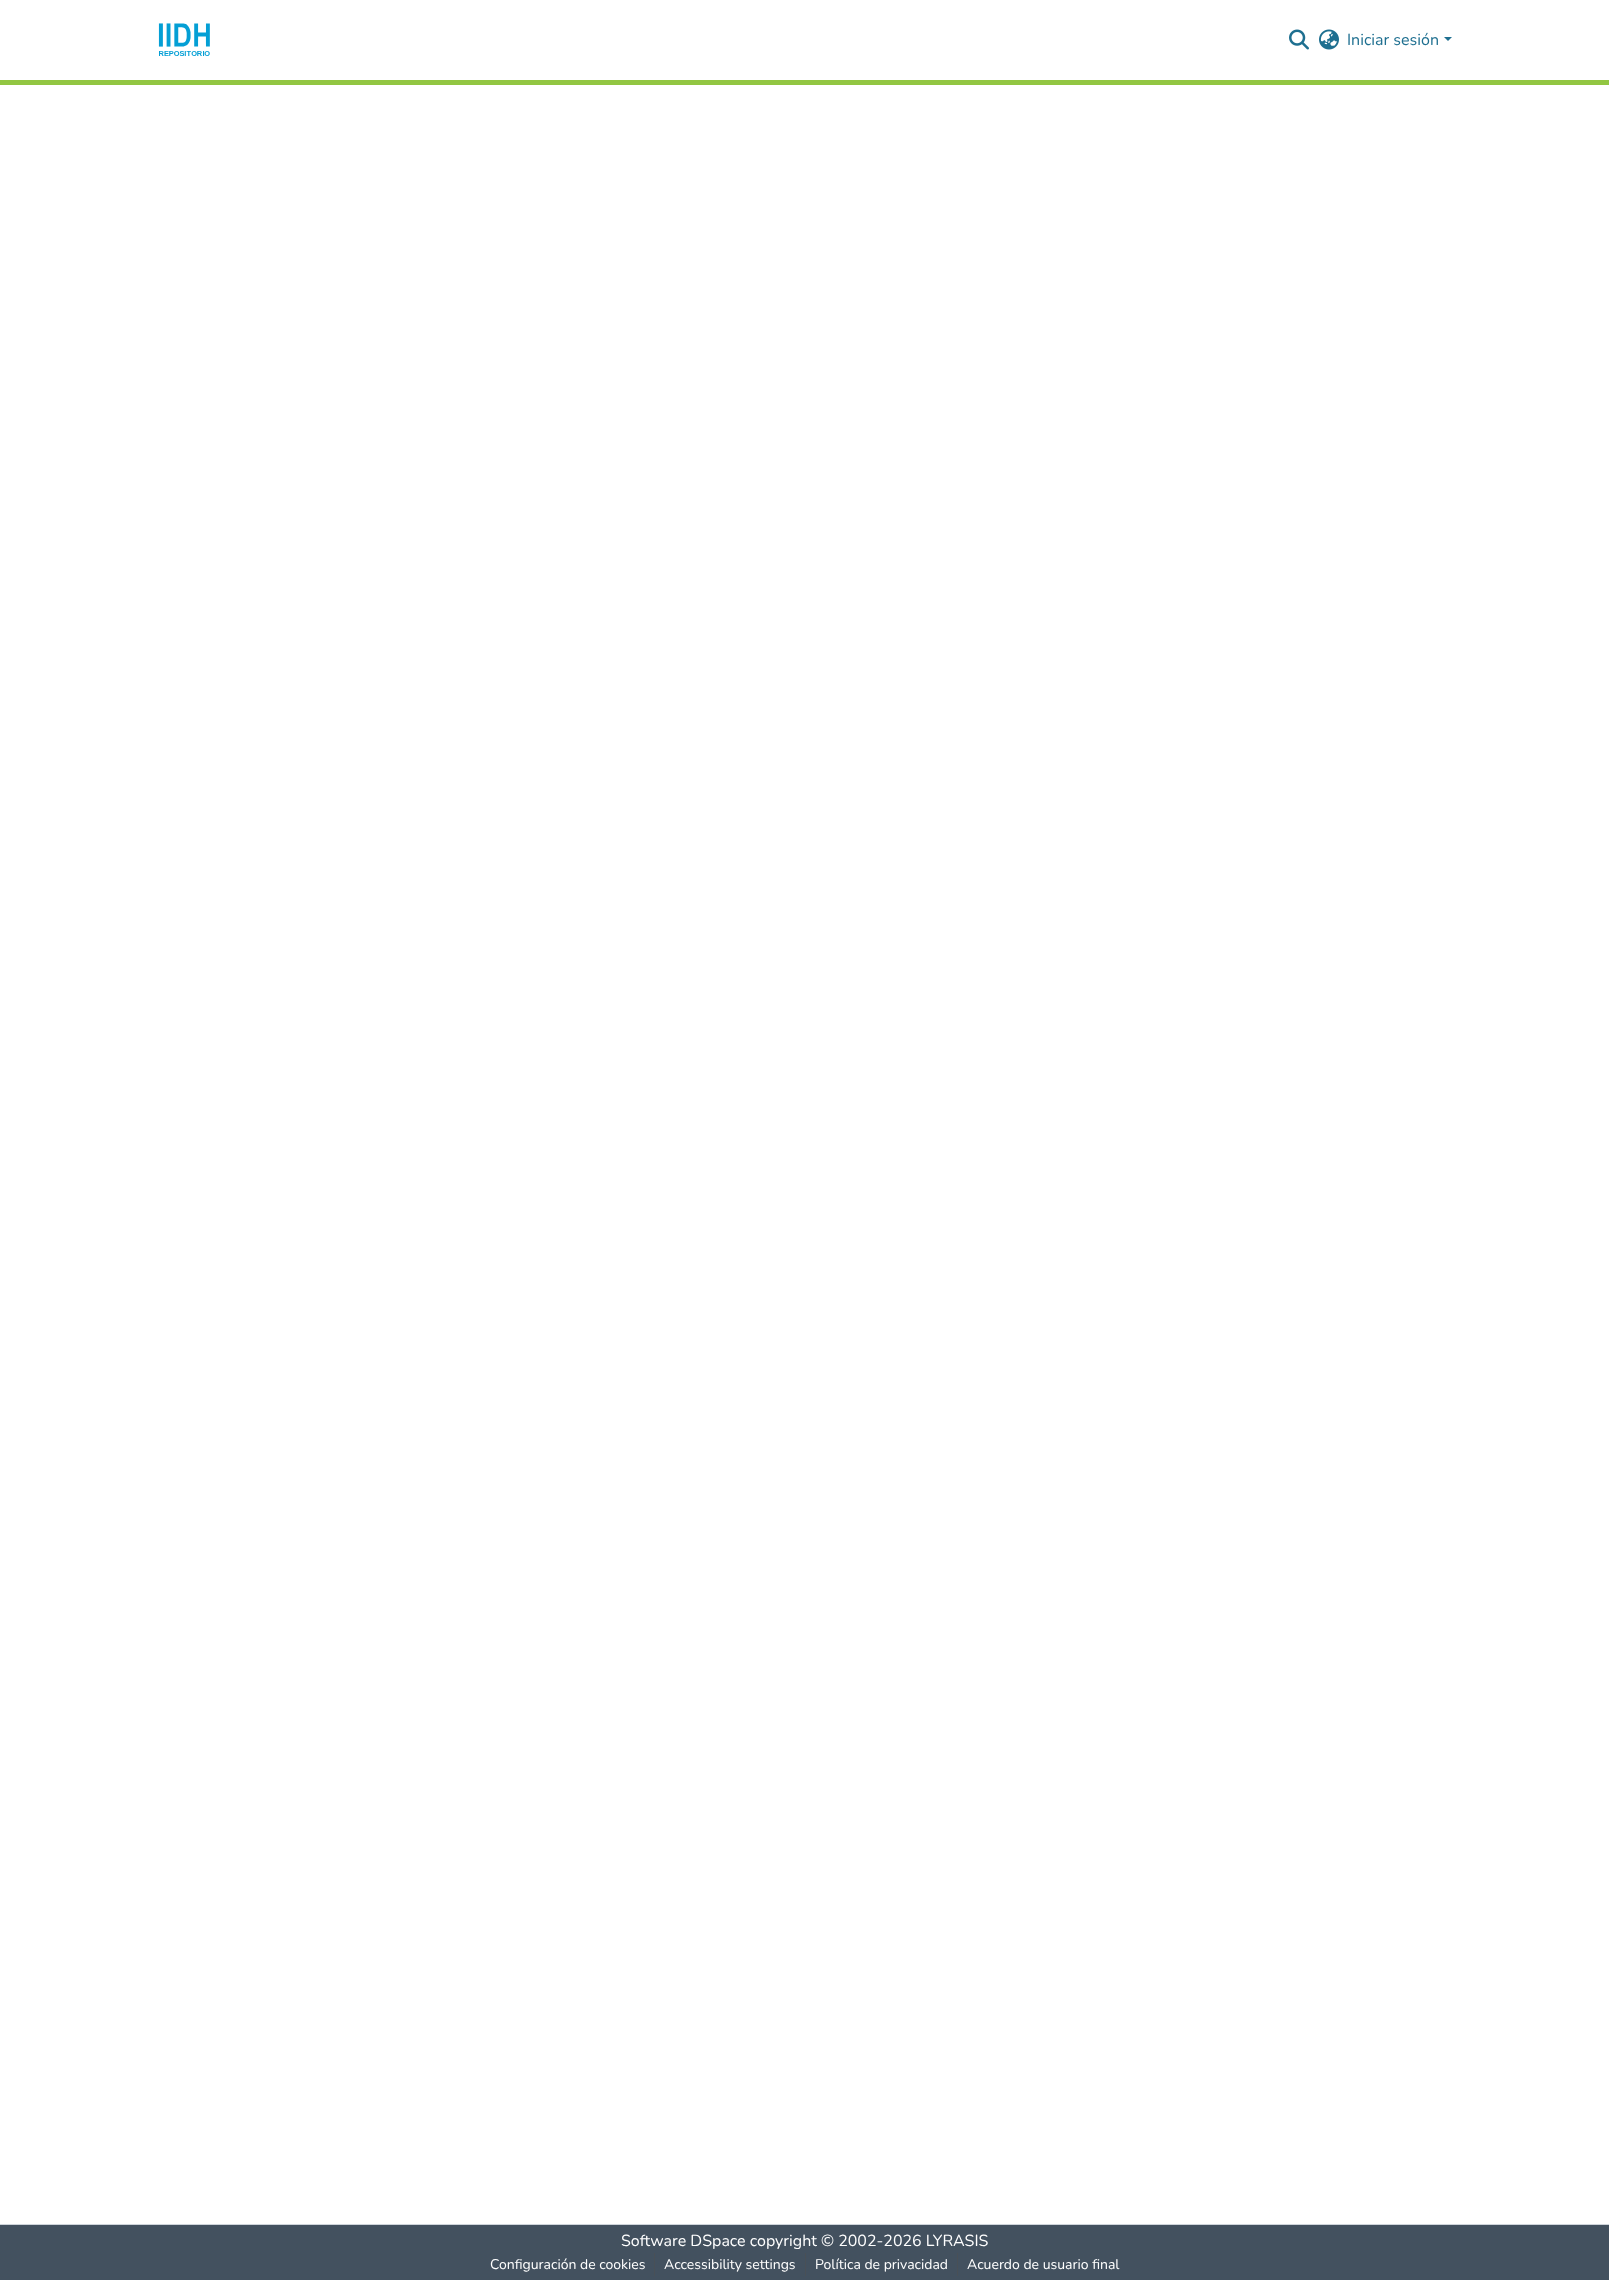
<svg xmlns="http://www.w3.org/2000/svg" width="1609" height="2280">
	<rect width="100%" height="100%" fill="#FFFFFF" />
	<rect x="0" y="80" width="1609" height="5" fill="#92C642" />
	<image x="158" y="23" width="52" height="33" href="assets/img1.png" />
	<image x="1289" y="29" width="20" height="21" href="assets/img2.png" />
	<image x="1319" y="29" width="20" height="21" href="assets/img3.png" />
	<text x="1347" y="45" font-family="Nunito" font-size="16" fill="#1E6F90">Iniciar sesión</text>
	<path d="M1444 37H1452L1448 41Z" fill="#1E6F90" />
	<rect x="0" y="2225" width="1609" height="55" fill="#43515F" />
	<rect x="0" y="2224" width="1609" height="1" fill="#CED4DA" />
	<text x="621" y="2246" font-family="Nunito" font-size="16" fill="#FFFFFF">Software DSpace copyright © 2002-2026 LYRASIS</text>
	<text x="490" y="2269" font-family="Nunito" font-size="14" fill="#FFFFFF">Configuración de cookies</text>
	<rect x="654" y="2253" width="1" height="23" fill="#495057" />
	<text x="664" y="2269" font-family="Nunito" font-size="14" fill="#FFFFFF">Accessibility settings</text>
	<rect x="805" y="2253" width="1" height="23" fill="#495057" />
	<text x="815" y="2269" font-family="Nunito" font-size="14" fill="#FFFFFF">Política de privacidad</text>
	<rect x="957" y="2253" width="1" height="23" fill="#495057" />
	<text x="967" y="2269" font-family="Nunito" font-size="14" fill="#FFFFFF">Acuerdo de usuario final</text>
</svg>
